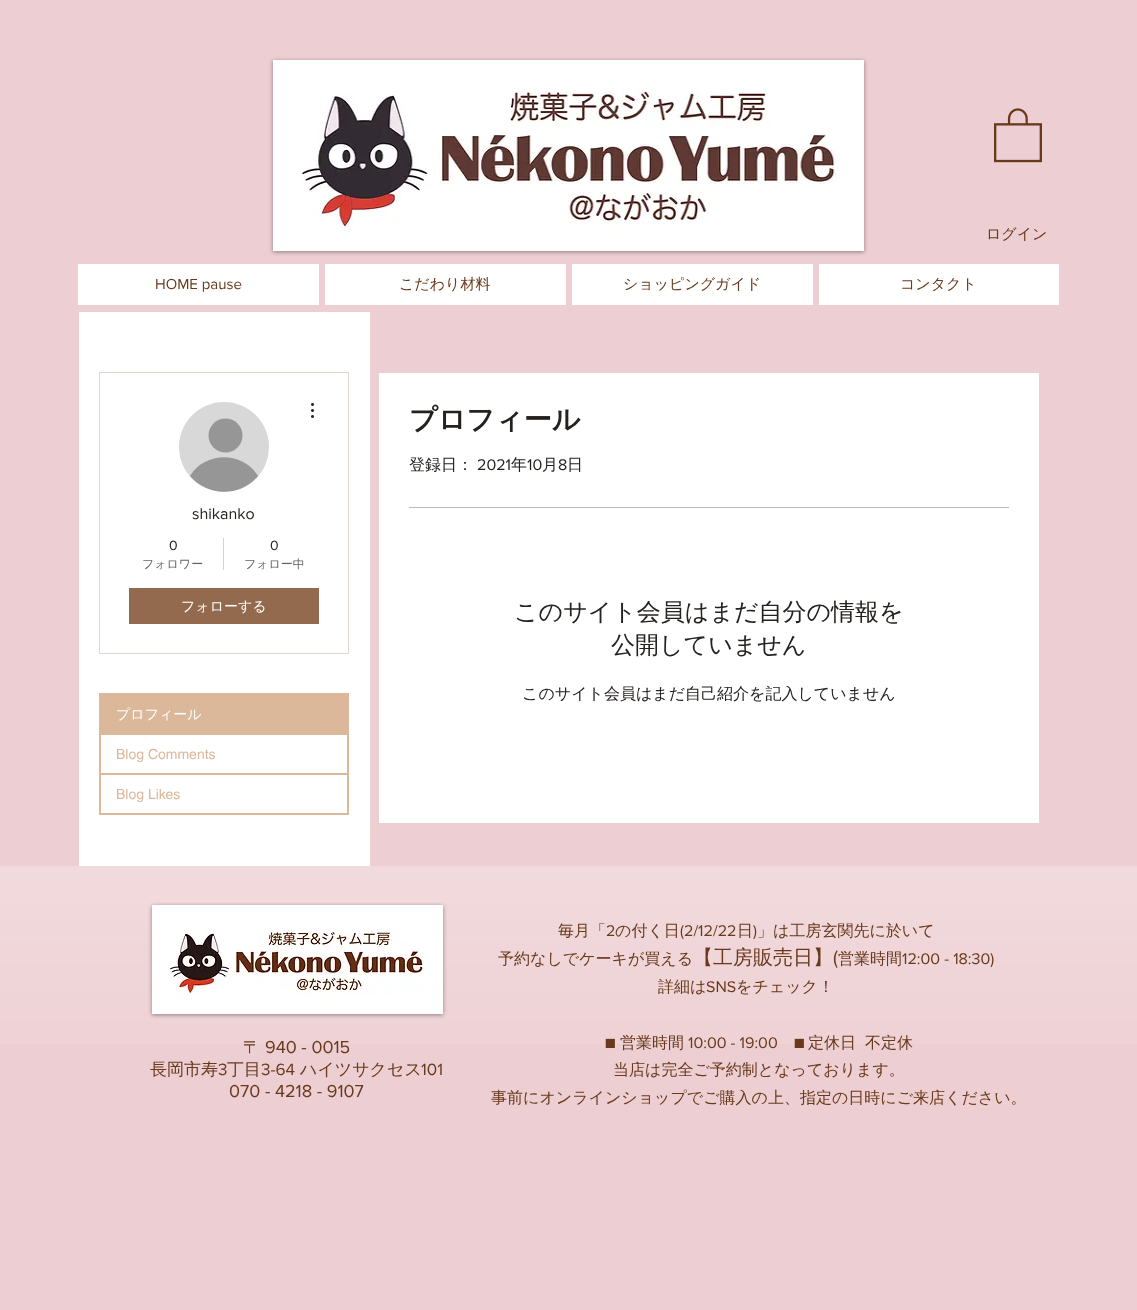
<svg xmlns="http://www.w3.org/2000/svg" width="1137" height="1310">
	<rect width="100%" height="100%" fill="#EDCED2" />
	<rect x="273" y="61" width="591" height="191" fill="#000000" fill-opacity="0.4" filter="blur(2px)" />
	<rect x="273" y="60" width="591" height="191" fill="#FFFFFF" />
	<image x="300" y="88" width="537" height="144" href="assets/img1.png" />
	<image x="994" y="108" width="48" height="55" href="assets/img2.png" />
	<text x="986" y="239" font-family="WenQuanYi Zen Hei" font-size="15" font-weight="500" fill="#68391A">ログイン</text>
	<rect x="78" y="264" width="241" height="41" fill="#FFFFFF" />
	<text x="155" y="289" font-family="'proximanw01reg'" font-size="15" fill="#68391A">HOME pause</text>
	<rect x="325" y="264" width="241" height="41" fill="#FFFFFF" />
	<text x="399" y="289" font-family="WenQuanYi Zen Hei" font-size="15" font-weight="500" fill="#68391A">こだわり材料</text>
	<rect x="572" y="264" width="241" height="41" fill="#FFFFFF" />
	<text x="623" y="289" font-family="WenQuanYi Zen Hei" font-size="15" font-weight="500" fill="#68391A">ショッピングガイド</text>
	<rect x="819" y="264" width="240" height="41" fill="#FFFFFF" />
	<text x="900" y="289" font-family="WenQuanYi Zen Hei" font-size="15" font-weight="500" fill="#68391A">コンタクト</text>
	<rect x="79" y="312" width="291" height="554" fill="#FFFFFF" />
	<rect x="99.5" y="372.5" width="249" height="281" fill="none" stroke="#E1D7D1" />
	<circle cx="224" cy="447" r="45" fill="#D8D8D8" />
	<circle cx="225.5" cy="435.5" r="17" fill="#969696" />
	<path d="M258 476C240 497 208 497 190 476C205 451 243 451 258 476Z" fill="#969696" />
	<image x="311" y="403" width="3" height="15" href="assets/img3.png" />
	<text x="192" y="519" font-family="'proximanw01reg'" font-size="16" fill="#24211F">shikanko</text>
	<text x="169" y="550" font-family="'proximanw01reg'" font-size="14" fill="#24211F">0</text>
	<text x="142" y="568" font-family="WenQuanYi Zen Hei" font-size="12" font-weight="500" fill="#666462">フォロワー</text>
	<rect x="223" y="538" width="1" height="32" fill="#D3D3D2" />
	<text x="270" y="550" font-family="'proximanw01reg'" font-size="14" fill="#24211F">0</text>
	<text x="244" y="568" font-family="WenQuanYi Zen Hei" font-size="12" font-weight="500" fill="#666462">フォロー中</text>
	<rect x="129" y="588" width="190" height="36" fill="#946A4E" />
	<text x="181" y="611" font-family="WenQuanYi Zen Hei" font-size="14" font-weight="500" fill="#FFFFFF">フォローする</text>
	<rect x="100" y="694" width="248" height="120" fill="none" stroke="#DBB89A" stroke-width="2" />
	<rect x="101" y="695" width="246" height="40" fill="#DBB89A" />
	<text x="116" y="719" font-family="WenQuanYi Zen Hei" font-size="14" font-weight="500" fill="#FFFFFF">プロフィール</text>
	<rect x="101" y="773" width="246" height="2" fill="#DBB89A" />
	<g font-family="helvetica" font-size="14" fill="#DBB89A">
		<text x="116" y="759">Blog Comments</text>
		<text x="116" y="799">Blog Likes</text>
	</g>
	<rect x="379" y="373" width="660" height="450" fill="#FFFFFF" />
	<text x="409" y="429" font-family="WenQuanYi Zen Hei" font-size="28" font-weight="700" fill="#24211F">プロフィール</text>
	<text x="409" y="470" font-family="WenQuanYi Zen Hei" font-size="16" font-weight="500" fill="#24211F">登録日：</text>
	<text x="477" y="470" font-family="'proximanw01reg'" font-size="16" fill="#24211F">2021</text>
	<text x="511" y="470" font-family="WenQuanYi Zen Hei" font-size="16" font-weight="500" fill="#24211F">年</text>
	<text x="527" y="470" font-family="'proximanw01reg'" font-size="16" fill="#24211F">10</text>
	<text x="542" y="470" font-family="WenQuanYi Zen Hei" font-size="16" font-weight="500" fill="#24211F">月</text>
	<text x="558" y="470" font-family="'proximanw01reg'" font-size="16" fill="#24211F">8</text>
	<text x="567" y="470" font-family="WenQuanYi Zen Hei" font-size="16" font-weight="500" fill="#24211F">日</text>
	<rect x="409" y="507" width="600" height="1" fill="#BDBCBC" />
	<g font-family="WenQuanYi Zen Hei" font-size="24" font-weight="500" fill="#24211F">
		<text x="514" y="620">このサイト会員はまだ自分の情報を</text>
		<text x="611" y="653">公開していません</text>
	</g>
	<text x="522" y="699" font-family="WenQuanYi Zen Hei" font-size="16" font-weight="500" fill="#24211F">このサイト会員はまだ自己紹介を記入していません</text>
	<image x="0" y="866" width="1137" height="178" href="assets/img4.png" />
	<rect x="152" y="906" width="291" height="109" fill="#000000" fill-opacity="0.4" filter="blur(2px)" />
	<rect x="152" y="905" width="291" height="109" fill="#FFFFFF" />
	<image x="168" y="929" width="256" height="67" href="assets/img5.png" />
	<text x="558" y="936" font-family="WenQuanYi Zen Hei" font-size="16" font-weight="500" fill="#68391A">毎月「</text>
	<text x="606" y="936" font-family="'proximanw01reg'" font-size="16" fill="#68391A">2</text>
	<text x="615" y="936" font-family="WenQuanYi Zen Hei" font-size="16" font-weight="500" fill="#68391A">の付く日</text>
	<text x="680" y="936" font-family="'proximanw01reg'" font-size="16" fill="#68391A">(2/12/22</text>
	<text x="737" y="936" font-family="WenQuanYi Zen Hei" font-size="16" font-weight="500" fill="#68391A">日</text>
	<text x="753" y="936" font-family="'proximanw01reg'" font-size="16" fill="#68391A">)</text>
	<g font-family="WenQuanYi Zen Hei" font-size="16" font-weight="500" fill="#68391A">
		<text x="757" y="936">」は工房玄関先に於いて</text>
		<text x="498" y="964">予約なしでケーキが買える</text>
	</g>
	<text x="693" y="964" font-family="WenQuanYi Zen Hei" font-size="20" font-weight="500" fill="#68391A">【工房販売日】</text>
	<text x="833" y="964" font-family="'proximanw01reg'" font-size="20" fill="#68391A">(</text>
	<text x="838" y="964" font-family="WenQuanYi Zen Hei" font-size="16" font-weight="500" fill="#68391A">営業時間</text>
	<text x="902" y="964" font-family="'proximanw01reg'" font-size="16" fill="#68391A">12:00 - 18:30)</text>
	<text x="658" y="992" font-family="WenQuanYi Zen Hei" font-size="16" font-weight="500" fill="#68391A">詳細は</text>
	<text x="706" y="992" font-family="'proximanw01reg'" font-size="16" fill="#68391A">SNS</text>
	<text x="736" y="992" font-family="WenQuanYi Zen Hei" font-size="16" font-weight="500" fill="#68391A">をチェック！</text>
	<text x="243" y="1053" font-family="WenQuanYi Zen Hei" font-size="17" font-weight="500" fill="#68391A">〒</text>
	<text x="265" y="1053" font-family="'proximanw01reg'" font-size="18" fill="#68391A">940 - 0015</text>
	<text x="150" y="1075" font-family="WenQuanYi Zen Hei" font-size="17" font-weight="500" fill="#68391A">長岡市寿</text>
	<text x="218" y="1075" font-family="'proximanw01reg'" font-size="17" fill="#68391A">3</text>
	<text x="227" y="1075" font-family="WenQuanYi Zen Hei" font-size="17" font-weight="500" fill="#68391A">丁目</text>
	<text x="261" y="1075" font-family="'proximanw01reg'" font-size="17" fill="#68391A">3-64</text>
	<text x="300" y="1075" font-family="WenQuanYi Zen Hei" font-size="17" font-weight="500" fill="#68391A">ハイツサクセス</text>
	<text x="421" y="1075" font-family="'proximanw01reg'" font-size="17" fill="#68391A">101</text>
	<text x="229" y="1097" font-family="'proximanw01reg'" font-size="18" fill="#68391A">070 - 4218 - 9107</text>
	<text x="605" y="1048" font-family="'proximanw01reg'" font-size="16" fill="#68391A">■</text>
	<text x="620" y="1048" font-family="WenQuanYi Zen Hei" font-size="16" font-weight="500" fill="#68391A">営業時間</text>
	<g font-family="'proximanw01reg'" font-size="16" fill="#68391A">
		<text x="688" y="1048">10:00 - 19:00</text>
		<text x="794" y="1048">■</text>
	</g>
	<g font-family="WenQuanYi Zen Hei" font-size="16" font-weight="500" fill="#68391A">
		<text x="808" y="1048">定休日</text>
		<text x="865" y="1048">不定休</text>
		<text x="613" y="1075">当店は完全ご予約制となっております。</text>
		<text x="491" y="1103">事前にオンラインショップでご購入の上、指定の日時にご来店ください。</text>
	</g>
</svg>
